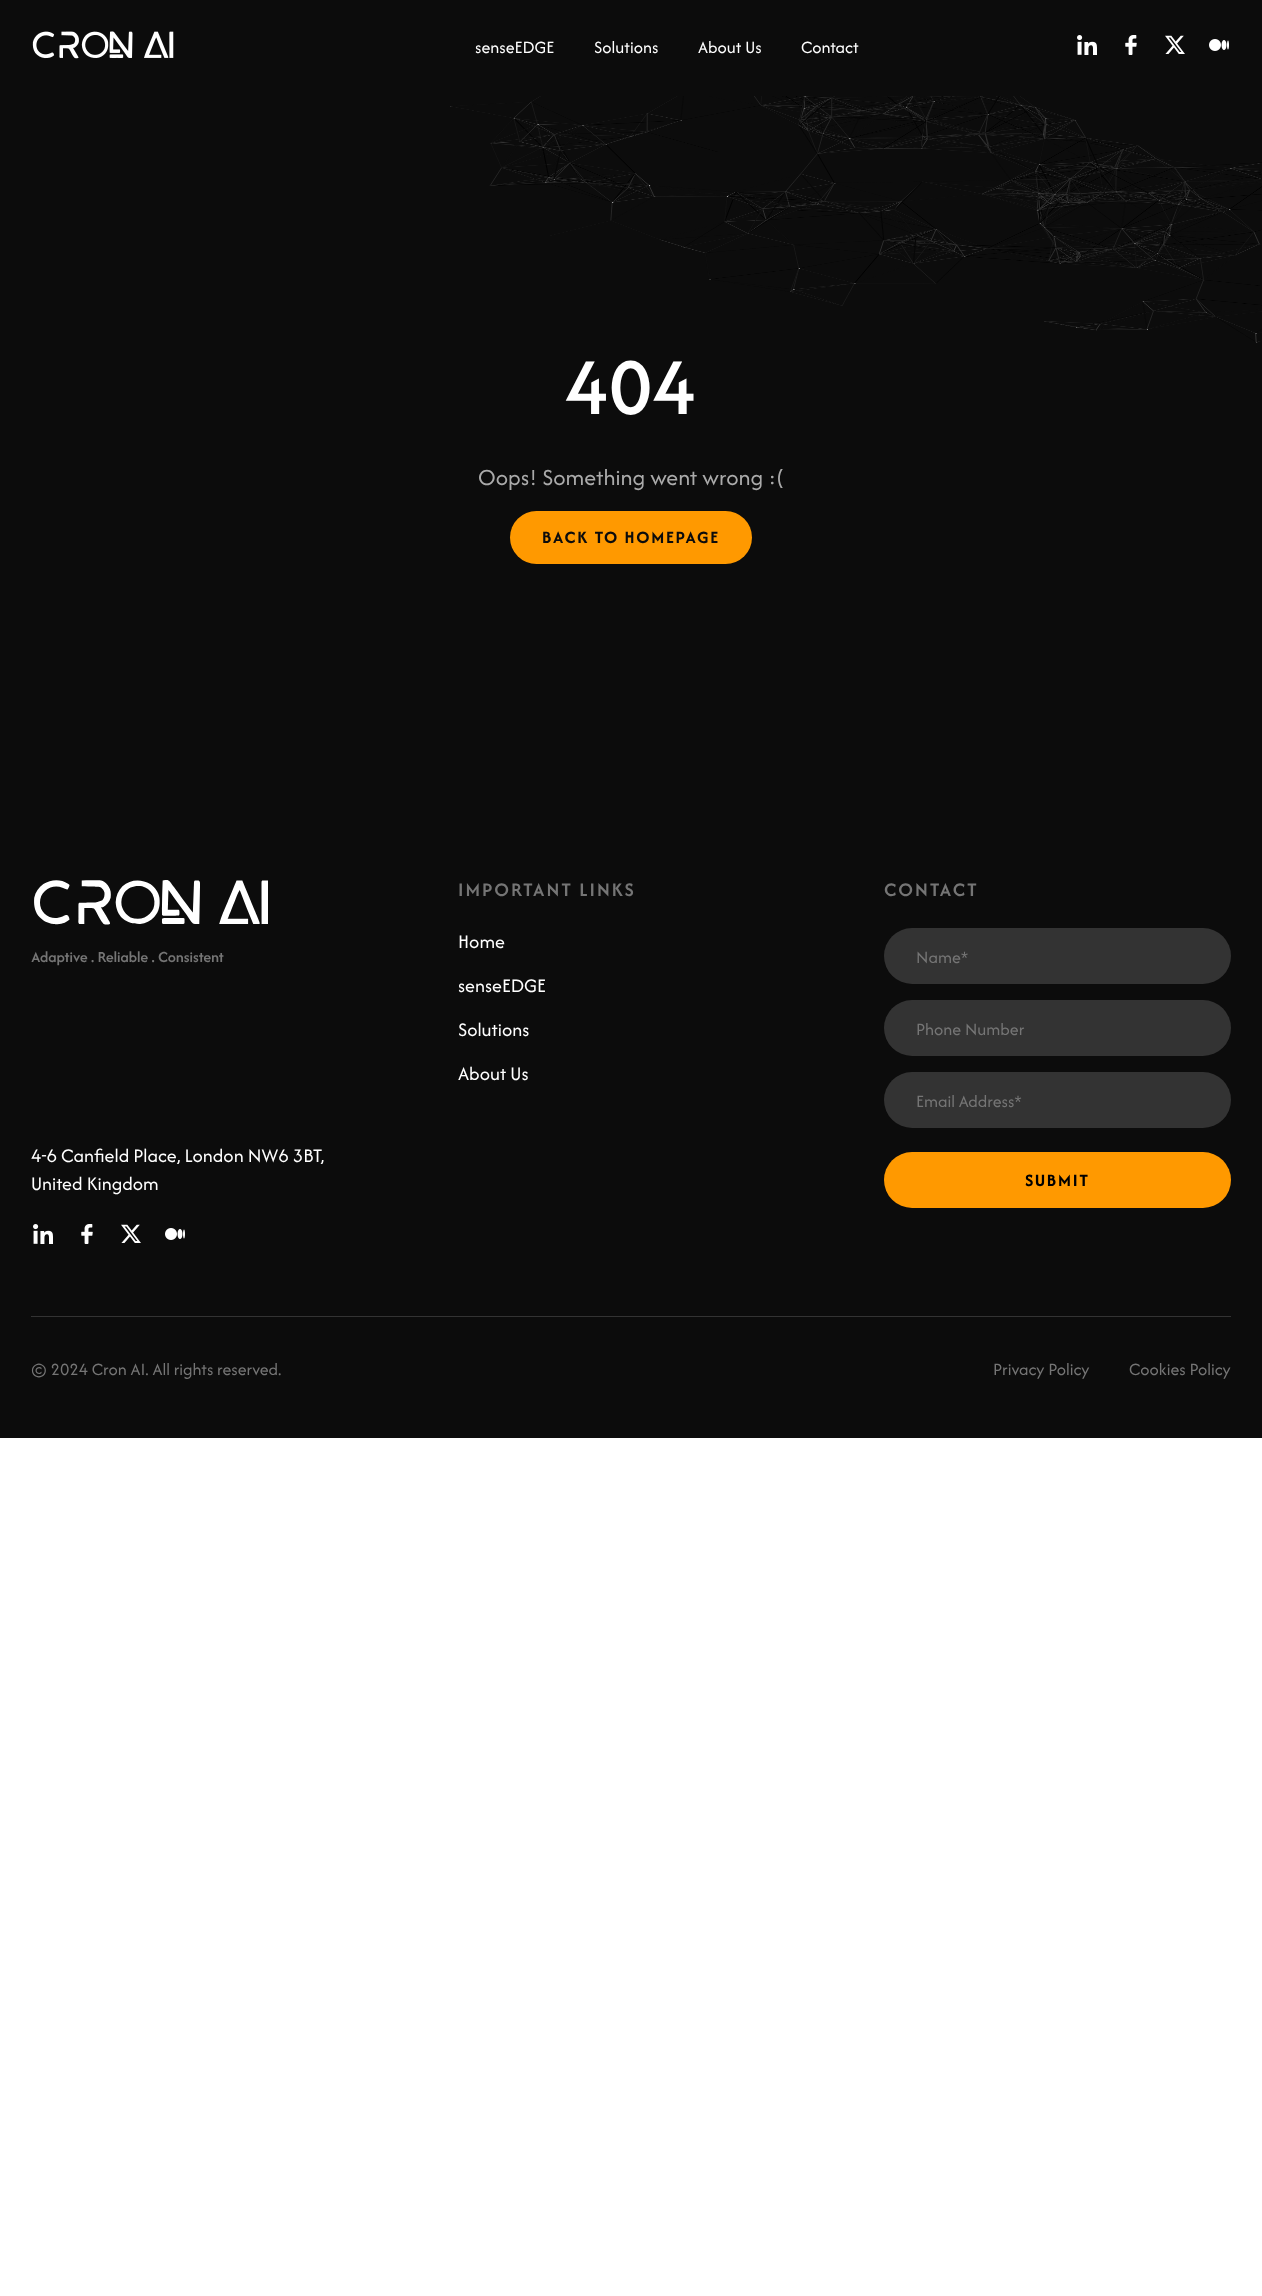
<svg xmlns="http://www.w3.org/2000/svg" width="1262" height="2296">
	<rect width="100%" height="100%" fill="#FFFFFF" />
	<rect x="0" y="0" width="1262" height="1438" fill="#0C0C0C" />
	<image x="32" y="31" width="142" height="28" href="assets/img1.png" />
	<g font-family="Afacad" font-size="18" fill="#FFFFFF">
		<text x="475" y="53">senseEDGE</text>
		<text x="594" y="53">Solutions</text>
		<text x="698" y="53">About Us</text>
		<text x="801" y="53">Contact</text>
	</g>
	<image x="1077" y="35" width="20" height="20" href="assets/img2.png" />
	<image x="1125" y="35" width="12" height="20" href="assets/img3.png" />
	<image x="1165" y="35" width="20" height="19" href="assets/img4.png" />
	<image x="1209" y="39" width="20" height="12" href="assets/img5.png" />
	<image x="450" y="96" width="812" height="247" href="assets/img6.png" />
	<text x="565" y="414" font-family="Afacad" font-size="84" font-weight="500" fill="#FFFFFF">404</text>
	<text x="478" y="485" font-family="Afacad" font-size="24" fill="#AAAAAA">Oops! Something went wrong :(</text>
	<rect x="510" y="511" width="242" height="53" rx="26.5" fill="#FF9900" />
	<text x="542" y="543" font-family="Afacad" font-size="18" font-weight="700" letter-spacing="1.75" fill="#0C0C0C">BACK TO HOMEPAGE</text>
	<image x="31" y="880" width="237" height="86" href="assets/img7.png" />
	<g font-family="Afacad" font-size="20" fill="#FFFFFF">
		<text x="31" y="1162">4-6 Canfield Place, London NW6 3BT,</text>
		<text x="31" y="1190">United Kingdom</text>
	</g>
	<image x="33" y="1224" width="20" height="20" href="assets/img2.png" />
	<image x="81" y="1224" width="12" height="20" href="assets/img3.png" />
	<image x="121" y="1224" width="20" height="19" href="assets/img4.png" />
	<image x="165" y="1228" width="20" height="12" href="assets/img5.png" />
	<text x="458" y="896" font-family="Afacad" font-size="20" font-weight="600" letter-spacing="2" fill="#757575">IMPORTANT LINKS</text>
	<g font-family="Afacad" font-size="20" fill="#FFFFFF">
		<text x="458" y="948">Home</text>
		<text x="458" y="992">senseEDGE</text>
		<text x="458" y="1036">Solutions</text>
		<text x="458" y="1080">About Us</text>
	</g>
	<text x="884" y="896" font-family="Afacad" font-size="20" font-weight="600" letter-spacing="2" fill="#757575">CONTACT</text>
	<rect x="884" y="928" width="347" height="56" rx="28" fill="#333333" />
	<text x="916" y="963" font-family="Afacad" font-size="18" fill="#757575">Name*</text>
	<rect x="884" y="1000" width="347" height="56" rx="28" fill="#333333" />
	<text x="916" y="1035" font-family="Afacad" font-size="18" fill="#757575">Phone Number</text>
	<rect x="884" y="1072" width="347" height="56" rx="28" fill="#333333" />
	<text x="916" y="1107" font-family="Afacad" font-size="18" fill="#757575">Email Address*</text>
	<rect x="884" y="1152" width="347" height="56" rx="28" fill="#FF9900" />
	<text x="1025" y="1186" font-family="Afacad" font-size="18" font-weight="700" letter-spacing="1.75" fill="#000000">SUBMIT</text>
	<rect x="31" y="1316" width="1200" height="1" fill="#333333" />
	<g font-family="Afacad" font-size="18" fill="#757575">
		<text x="31" y="1375">© 2024 Cron AI. All rights reserved.</text>
		<text x="993" y="1375">Privacy Policy</text>
		<text x="1129" y="1375">Cookies Policy</text>
	</g>
</svg>
